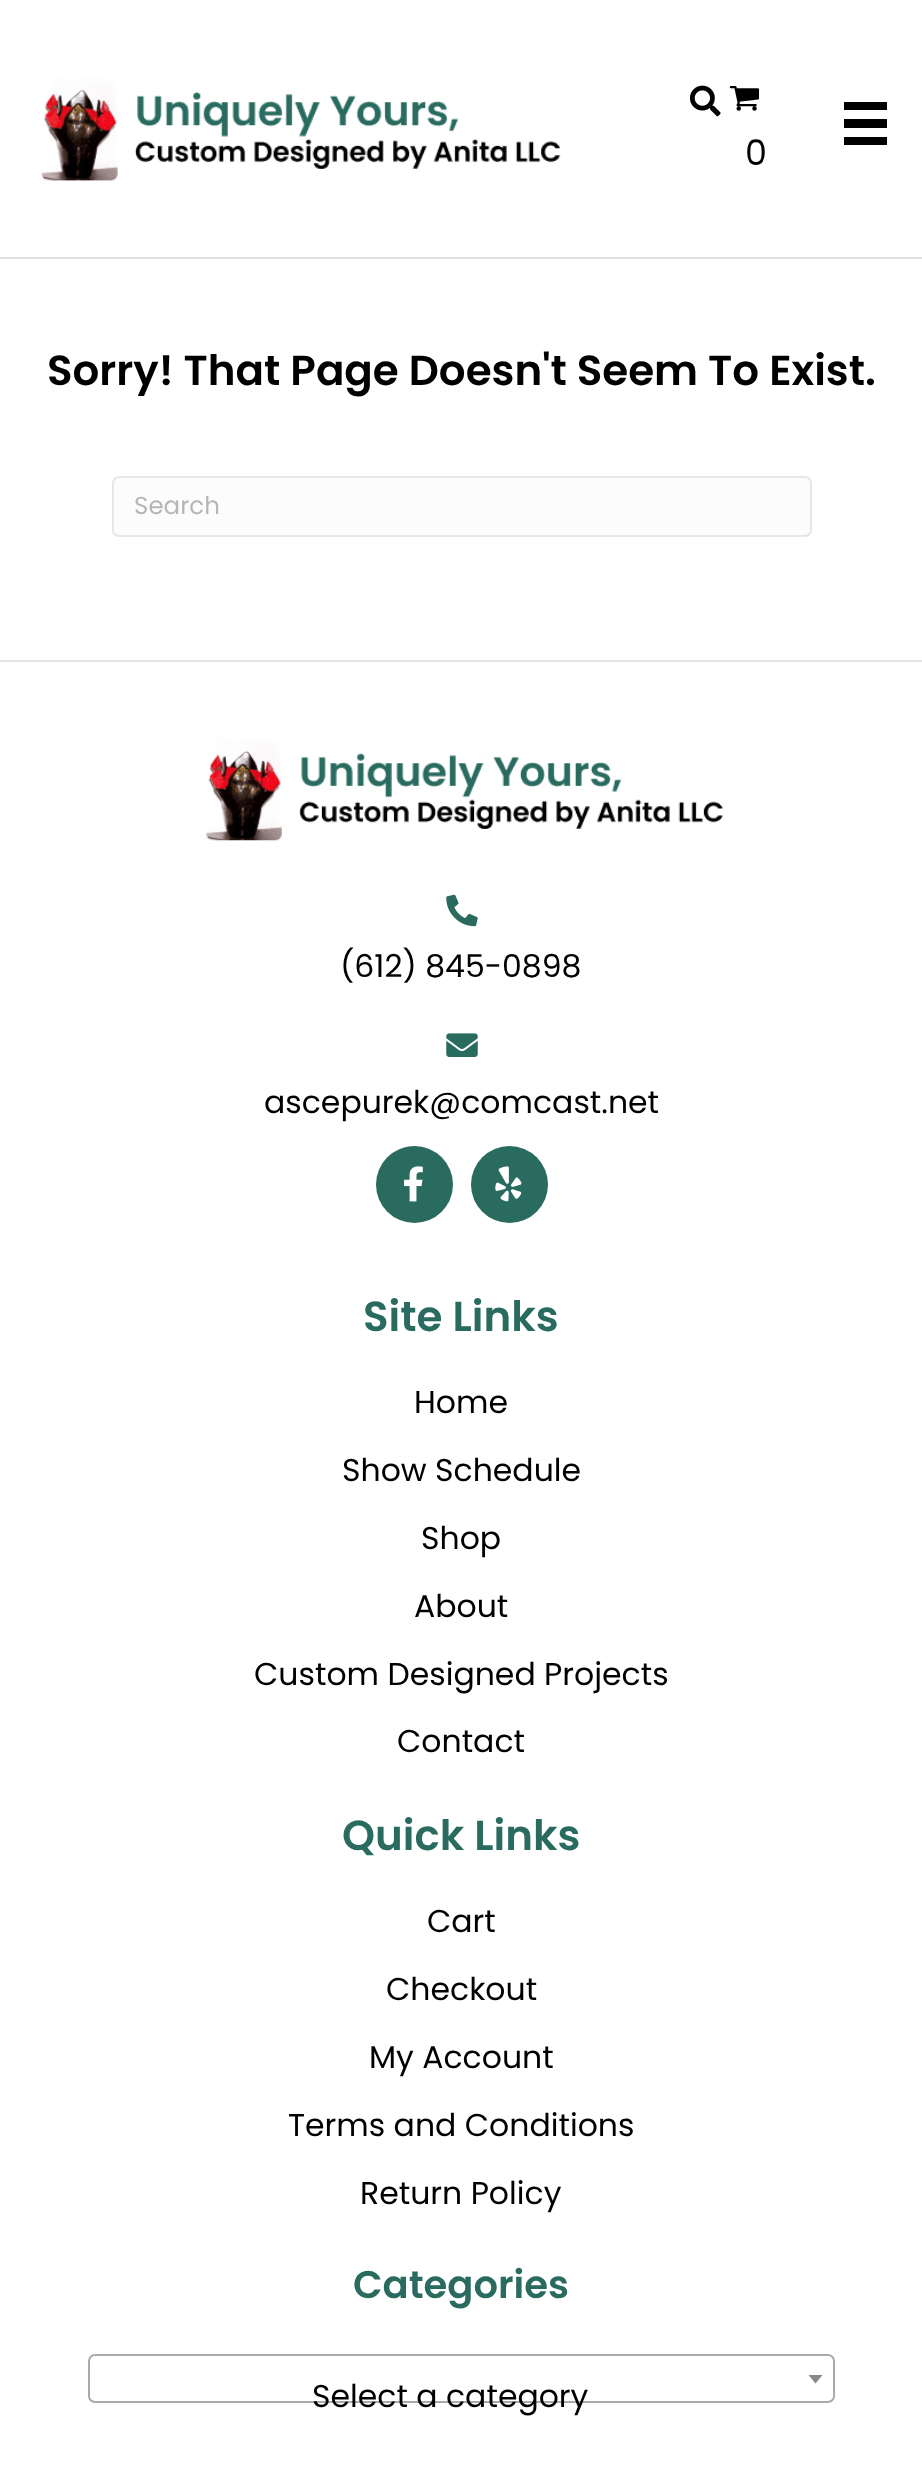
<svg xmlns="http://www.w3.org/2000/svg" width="922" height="2480">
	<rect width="100%" height="100%" fill="#FFFFFF" />
	<rect x="0" y="257" width="922" height="2" fill="#E0E0E0" />
	<image x="35" y="70" width="526" height="117" href="assets/img1.png" />
	<rect x="844" y="102" width="43" height="8" fill="#000000" />
	<rect x="844" y="119" width="43" height="9" fill="#000000" />
	<rect x="844" y="137" width="43" height="8" fill="#000000" />
	<image x="689" y="85" width="32" height="32" href="assets/img2.png" />
	<image x="729" y="86" width="30" height="25" href="assets/img3.png" />
	<text x="745" y="165" font-family="Poppins" font-size="35" fill="#000000">0</text>
	<text x="47" y="385" font-family="Poppins" font-size="42" font-weight="600" fill="#000000">Sorry! That Page Doesn't Seem To Exist.</text>
	<rect x="113" y="477" width="698" height="59" rx="6" fill="#FCFCFC" stroke="#E6E6E6" stroke-width="2" />
	<text x="134" y="514" font-family="Poppins" font-size="24.5" fill="#B6B6B6">Search</text>
	<rect x="0" y="660" width="922" height="2" fill="#E6E6E6" />
	<image x="200" y="732" width="524" height="115" href="assets/img4.png" />
	<image x="446" y="894" width="32" height="33" href="assets/img5.png" />
	<text x="340" y="977" font-family="Poppins" font-size="31.5" fill="#000000">(612) 845-0898</text>
	<image x="446" y="1033" width="32" height="24" href="assets/img6.png" />
	<text x="264" y="1113" font-family="Poppins" font-size="31.5" fill="#000000">ascepurek@comcast.net</text>
	<circle cx="414.5" cy="1184.5" r="38.5" fill="#2A6B60" />
	<image x="404" y="1166" width="19" height="36" href="assets/img7.png" />
	<circle cx="509.5" cy="1184.5" r="38.5" fill="#2A6B60" />
	<image x="495" y="1166" width="27" height="36" href="assets/img8.png" />
	<text x="363" y="1331" font-family="Poppins" font-size="42" font-weight="600" fill="#2A6B60">Site Links</text>
	<g font-family="Poppins" font-size="31.5" fill="#000000">
		<text x="414" y="1413">Home</text>
		<text x="342" y="1481">Show Schedule</text>
		<text x="421" y="1549">Shop</text>
		<text x="414" y="1617">About</text>
		<text x="254" y="1685">Custom Designed Projects</text>
		<text x="397" y="1752">Contact</text>
	</g>
	<text x="342" y="1850" font-family="Poppins" font-size="42" font-weight="600" fill="#2A6B60">Quick Links</text>
	<g font-family="Poppins" font-size="31.5" fill="#000000">
		<text x="427" y="1932">Cart</text>
		<text x="386" y="2000">Checkout</text>
		<text x="369" y="2068">My Account</text>
		<text x="288" y="2136">Terms and Conditions</text>
		<text x="360" y="2204">Return Policy</text>
	</g>
	<text x="353" y="2298" font-family="Poppins" font-size="38.5" font-weight="600" fill="#2A6B60">Categories</text>
	<rect x="89" y="2355" width="745" height="47" rx="6" fill="none" stroke="#AAAAAA" stroke-width="2" />
	<path d="M808.5 2375H822.5L815.5 2383.5Z" fill="#888888" />
	<text x="312" y="2407" font-family="Poppins" font-size="31.5" fill="#000000">Select a category</text>
</svg>
